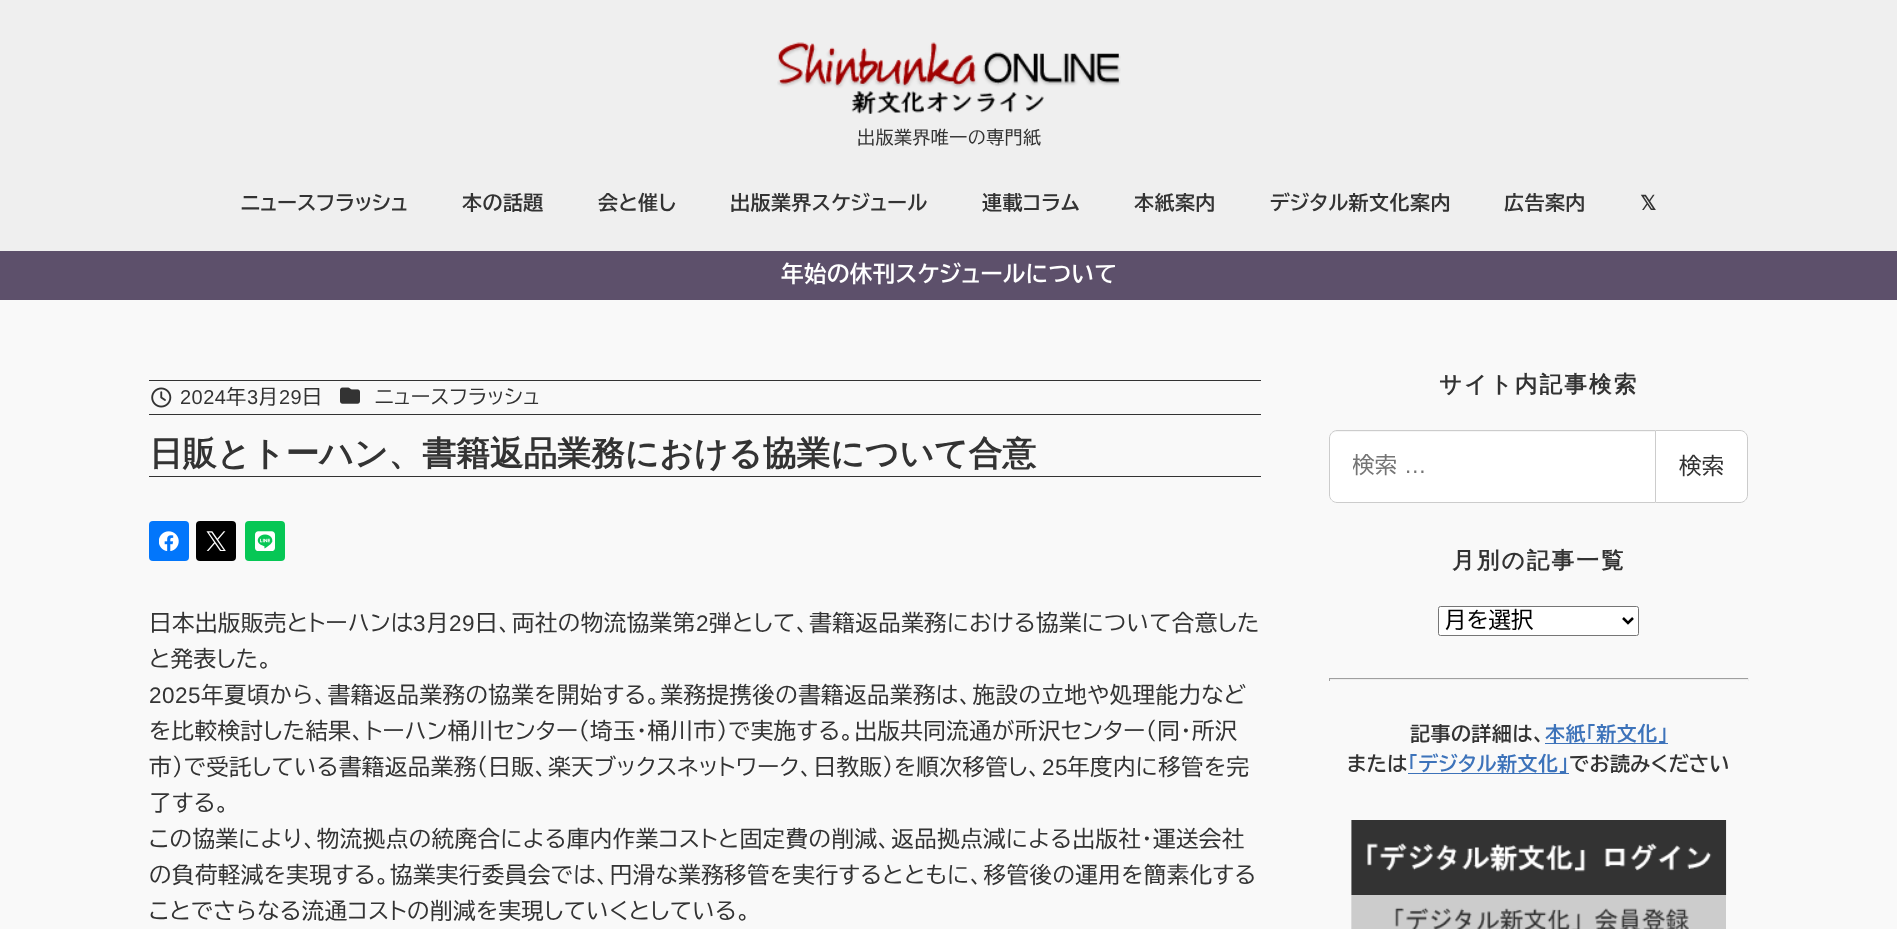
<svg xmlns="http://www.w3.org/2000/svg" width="1897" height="929">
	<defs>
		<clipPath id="clip1"><rect x="1353" y="454" width="260" height="26" /></clipPath>
	</defs>
	<rect width="100%" height="100%" fill="#F9F9F9" />
	<rect x="0" y="0" width="1897" height="251" fill="#EFEFEF" />
	<image x="777" y="42" width="344" height="72" href="assets/img1.png" />
	<text x="857" y="144" font-family="BIZ UDPGothic" font-size="18" letter-spacing="0.45" fill="#333333">出版業界唯一の専門紙</text>
	<g font-family="BIZ UDPGothic" font-size="20" font-weight="700" letter-spacing="0.45" fill="#333333">
		<text x="241" y="210">ニュースフラッシュ</text>
		<text x="462" y="210">本の話題</text>
		<text x="598" y="210">会と催し</text>
		<text x="730" y="210">出版業界スケジュール</text>
		<text x="982" y="210">連載コラム</text>
		<text x="1134" y="210">本紙案内</text>
		<text x="1270" y="210">デジタル新文化案内</text>
		<text x="1504" y="210">広告案内</text>
	</g>
	<text x="1640" y="210" font-family="DejaVu Sans" font-size="20" font-weight="700" letter-spacing="0.45" fill="#333333">𝕏</text>
	<rect x="0" y="251" width="1897" height="49" fill="#5D506B" />
	<text x="781" y="282" font-family="BIZ UDPGothic" font-size="22.5" font-weight="700" letter-spacing="0.45" fill="#FFFFFF">年始の休刊スケジュールについて</text>
	<rect x="149" y="476" width="1112" height="1" fill="#333333" />
	<rect x="149" y="380" width="1112" height="1" fill="#333333" />
	<rect x="149" y="414" width="1112" height="1" fill="#333333" />
	<image x="151" y="387" width="21" height="21" href="assets/img2.png" />
	<text x="180" y="404" font-family="Liberation Sans" font-size="20" letter-spacing="0.45" fill="#333333">2024</text>
	<text x="226" y="404" font-family="BIZ UDPGothic" font-size="20" letter-spacing="0.45" fill="#333333">年</text>
	<text x="247" y="404" font-family="Liberation Sans" font-size="20" letter-spacing="0.45" fill="#333333">3</text>
	<text x="258" y="404" font-family="BIZ UDPGothic" font-size="20" letter-spacing="0.45" fill="#333333">月</text>
	<text x="279" y="404" font-family="Liberation Sans" font-size="20" letter-spacing="0.45" fill="#333333">29</text>
	<text x="302" y="404" font-family="BIZ UDPGothic" font-size="20" letter-spacing="0.45" fill="#333333">日</text>
	<image x="340" y="387" width="20" height="17" href="assets/img3.png" />
	<text x="375" y="404" font-family="BIZ UDPGothic" font-size="20" letter-spacing="0.45" fill="#333333">ニュースフラッシュ</text>
	<text x="149" y="465" font-family="WenQuanYi Zen Hei" font-size="33.75" font-weight="700" fill="#333333">日販とトーハン、書籍返品業務における協業について合意</text>
	<rect x="149" y="521" width="40" height="40" rx="4" fill="#0276FB" />
	<image x="159" y="531" width="20" height="20" href="assets/img4.png" />
	<rect x="196" y="521" width="40" height="40" rx="4" fill="#000000" />
	<image x="206" y="531" width="20" height="20" href="assets/img5.png" />
	<rect x="245" y="521" width="40" height="40" rx="4" fill="#06C755" />
	<image x="255" y="531" width="20" height="20" href="assets/img6.png" />
	<text x="149" y="631" font-family="BIZ UDPGothic" font-size="22.5" letter-spacing="0.45" fill="#333333">日本出版販売とトーハンは</text>
	<text x="413" y="631" font-family="Liberation Sans" font-size="22.5" letter-spacing="0.45" fill="#333333">3</text>
	<text x="426" y="631" font-family="BIZ UDPGothic" font-size="22.5" letter-spacing="0.45" fill="#333333">月</text>
	<text x="449" y="631" font-family="Liberation Sans" font-size="22.5" letter-spacing="0.45" fill="#333333">29</text>
	<text x="475" y="631" font-family="BIZ UDPGothic" font-size="22.5" letter-spacing="0.45" fill="#333333">日、両社の物流協業第</text>
	<text x="696" y="631" font-family="Liberation Sans" font-size="22.5" letter-spacing="0.45" fill="#333333">2</text>
	<g font-family="BIZ UDPGothic" font-size="22.5" letter-spacing="0.45" fill="#333333">
		<text x="709" y="631">弾として、書籍返品業務における協業について合意した</text>
		<text x="149" y="667">と発表した。</text>
	</g>
	<text x="149" y="703" font-family="Liberation Sans" font-size="22.5" letter-spacing="0.45" fill="#333333">2025</text>
	<g font-family="BIZ UDPGothic" font-size="22.5" letter-spacing="0.45" fill="#333333">
		<text x="201" y="703">年夏頃から、書籍返品業務の協業を開始する。業務提携後の書籍返品業務は、施設の立地や処理能力など</text>
		<text x="149" y="739">を比較検討した結果、トーハン桶川センター（埼玉・桶川市）で実施する。出版共同流通が所沢センター（同・所沢</text>
		<text x="149" y="775">市）で受託している書籍返品業務（日販、楽天ブックスネットワーク、日教販）を順次移管し、</text>
	</g>
	<text x="1042" y="775" font-family="Liberation Sans" font-size="22.5" letter-spacing="0.45" fill="#333333">25</text>
	<g font-family="BIZ UDPGothic" font-size="22.5" letter-spacing="0.45" fill="#333333">
		<text x="1067" y="775">年度内に移管を完</text>
		<text x="149" y="811">了する。</text>
		<text x="149" y="847">この協業により、物流拠点の統廃合による庫内作業コストと固定費の削減、返品拠点減による出版社・運送会社</text>
		<text x="149" y="883">の負荷軽減を実現する。協業実行委員会では、円滑な業務移管を実行するとともに、移管後の運用を簡素化する</text>
		<text x="149" y="919">ことでさらなる流通コストの削減を実現していくとしている。</text>
	</g>
	<text x="1439" y="392" font-family="WenQuanYi Zen Hei" font-size="22.5" font-weight="700" letter-spacing="2.25" fill="#333333">サイト内記事検索</text>
	<path d="M1655.5 430.5H1740C1744 430.5 1747.5 434 1747.5 438V495C1747.5 499 1744 502.5 1740 502.5H1655.5Z" fill="#FFFFFF" stroke="#CCCCCC" />
	<path d="M1337 430H1656V503H1337C1332.5 503 1329 499.5 1329 495V438C1329 433.5 1332.5 430 1337 430Z" fill="#FFFFFF" />
	<path d="M1336 432H1655V431H1336C1331 431 1330 435 1330 439C1330 435 1333 432 1336 432Z" fill="#F6F6F6" />
	<path d="M1337 430.5H1655.5V502.5H1337C1333 502.5 1329.5 499 1329.5 495V438C1329.5 434 1333 430.5 1337 430.5Z" fill="none" stroke="#CCCCCC" />
	<g clip-path="url(#clip1)">
		<text x="1352" y="473" font-family="BIZ UDPGothic" font-size="22.5" fill="#757575">検索</text>
	</g>
	<text x="1404" y="473" font-family="Liberation Sans" font-size="22.5" fill="#757575">…</text>
	<text x="1679" y="474" font-family="BIZ UDPGothic" font-size="22.5" fill="#333333">検索</text>
	<text x="1452" y="568" font-family="WenQuanYi Zen Hei" font-size="22.5" font-weight="700" letter-spacing="2.25" fill="#333333">月別の記事一覧</text>
	<rect x="1438.5" y="606.5" width="200" height="29" rx="2" fill="#FFFFFF" stroke="#767676" />
	<path d="M1623 618L1628 623L1633 618" fill="none" stroke="#000000" stroke-width="2.5" />
	<text x="1444" y="628" font-family="BIZ UDPGothic" font-size="22.5" fill="#000000">月を選択</text>
	<rect x="1329" y="678" width="420" height="1" fill="#9F9F9F" />
	<rect x="1748" y="678" width="1" height="3" fill="#EEEEEE" />
	<rect x="1329" y="679" width="420" height="1" fill="#EEEEEE" />
	<rect x="1329" y="678" width="1" height="3" fill="#9F9F9F" />
	<text x="1410" y="741" font-family="BIZ UDPGothic" font-size="20" font-weight="700" letter-spacing="0.45" fill="#333333">記事の詳細は、</text>
	<rect x="1545" y="743" width="123" height="1" fill="#3D73BA" />
	<text x="1545" y="741" font-family="BIZ UDPGothic" font-size="20" font-weight="700" letter-spacing="0.45" fill="#3D73BA">本紙「新文化」</text>
	<text x="1347" y="771" font-family="BIZ UDPGothic" font-size="20" font-weight="700" letter-spacing="0.45" fill="#333333">または</text>
	<rect x="1408" y="773" width="161" height="1" fill="#3D73BA" />
	<text x="1408" y="771" font-family="BIZ UDPGothic" font-size="20" font-weight="700" letter-spacing="0.45" fill="#3D73BA">「デジタル新文化」</text>
	<text x="1569" y="771" font-family="BIZ UDPGothic" font-size="20" font-weight="700" letter-spacing="0.45" fill="#333333">でお読みください</text>
	<image x="1351" y="820" width="1" height="75" href="assets/img7.png" />
	<image x="1351" y="820" width="376" height="75" href="assets/img8.png" />
	<image x="1351" y="895" width="1" height="34" href="assets/img9.png" />
	<image x="1351" y="895" width="375" height="34" href="assets/img10.png" />
</svg>
